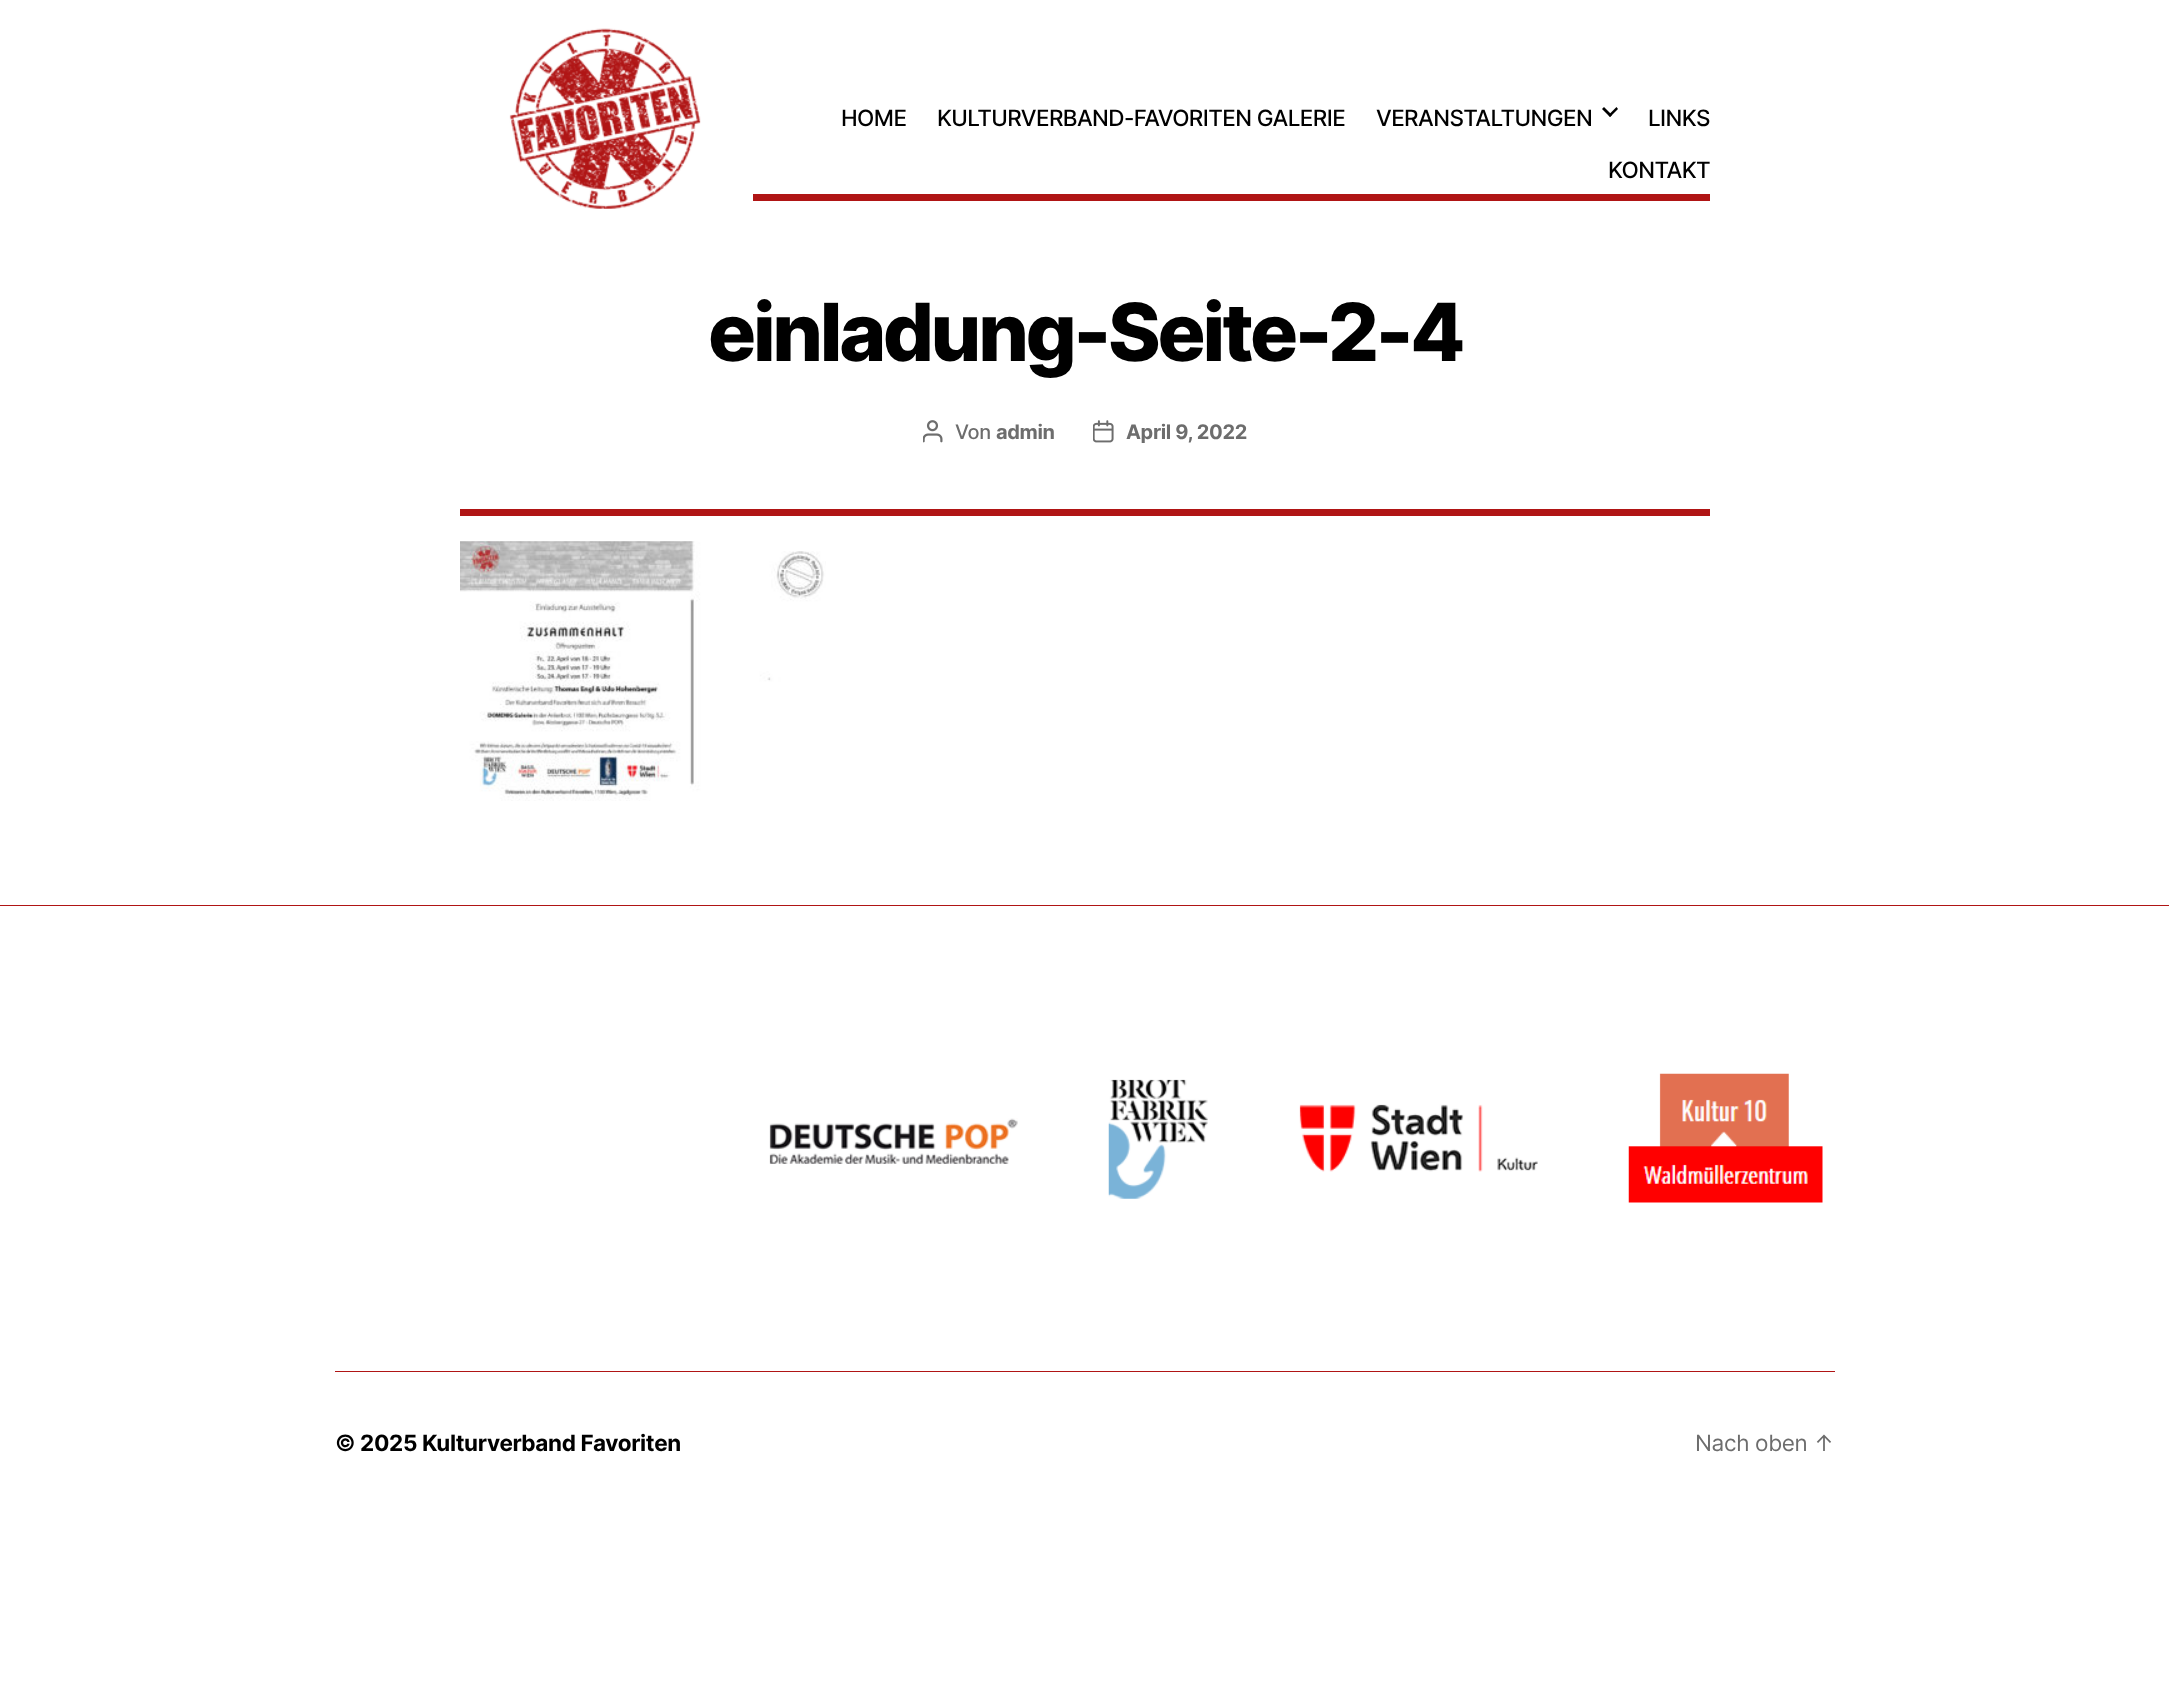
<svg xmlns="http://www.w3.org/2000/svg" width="2169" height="1698">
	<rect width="100%" height="100%" fill="#FFFFFF" />
	<image x="509" y="28" width="192" height="181" href="assets/img1.png" />
	<rect x="753" y="194" width="957" height="7" fill="#B01515" />
	<g font-family="Inter" font-size="22.5" font-weight="500" letter-spacing="-0.6" fill="#000000">
		<text x="841" y="126">HOME</text>
		<text x="937" y="126">KULTURVERBAND-FAVORITEN GALERIE</text>
		<text x="1376" y="126">VERANSTALTUNGEN</text>
	</g>
	<path d="M1602 109L1604 107L1612 115L1610 117Z" fill="#000000" />
	<path d="M1608.5 115L1616.5 107L1618 109L1610 117Z" fill="#000000" />
	<g font-family="Inter" font-size="22.5" font-weight="500" letter-spacing="-0.6" fill="#000000">
		<text x="1648" y="126">LINKS</text>
		<text x="1608" y="178">KONTAKT</text>
	</g>
	<text x="708" y="361" font-family="Inter" font-size="80" font-weight="800" letter-spacing="-3.3" fill="#000000">einladung-Seite-2-4</text>
	<image x="923" y="420" width="20" height="23" href="assets/img2.png" />
	<text x="955" y="439" font-family="Inter" font-size="20" font-weight="500" letter-spacing="-0.35" fill="#6D6D6D">Von</text>
	<text x="996" y="439" font-family="Inter" font-size="20" font-weight="700" letter-spacing="-0.35" fill="#6D6D6D">admin</text>
	<image x="1093" y="420" width="21" height="23" href="assets/img3.png" />
	<text x="1126" y="439" font-family="Inter" font-size="20" font-weight="700" letter-spacing="-0.35" fill="#6D6D6D">April 9, 2022</text>
	<rect x="460" y="509" width="1250" height="7" fill="#B01515" />
	<image x="460" y="541" width="366" height="260" href="assets/img4.png" />
	<rect x="0" y="905" width="2169" height="1" fill="#B01515" />
	<rect x="335" y="1371" width="1500" height="1" fill="#B01515" />
	<image x="769" y="1118" width="249" height="46" href="assets/img5.png" />
	<image x="1108" y="1079" width="100" height="120" href="assets/img6.png" />
	<image x="1299" y="1104" width="239" height="68" href="assets/img7.png" />
	<image x="1628" y="1073" width="195" height="130" href="assets/img8.png" />
	<text x="335" y="1451" font-family="Inter" font-size="22.5" font-weight="700" letter-spacing="-0.35" fill="#000000">© 2025 Kulturverband Favoriten</text>
	<text x="1695" y="1451" font-family="Inter" font-size="22.5" letter-spacing="-0.35" fill="#6D6D6D">Nach oben ↑</text>
</svg>
